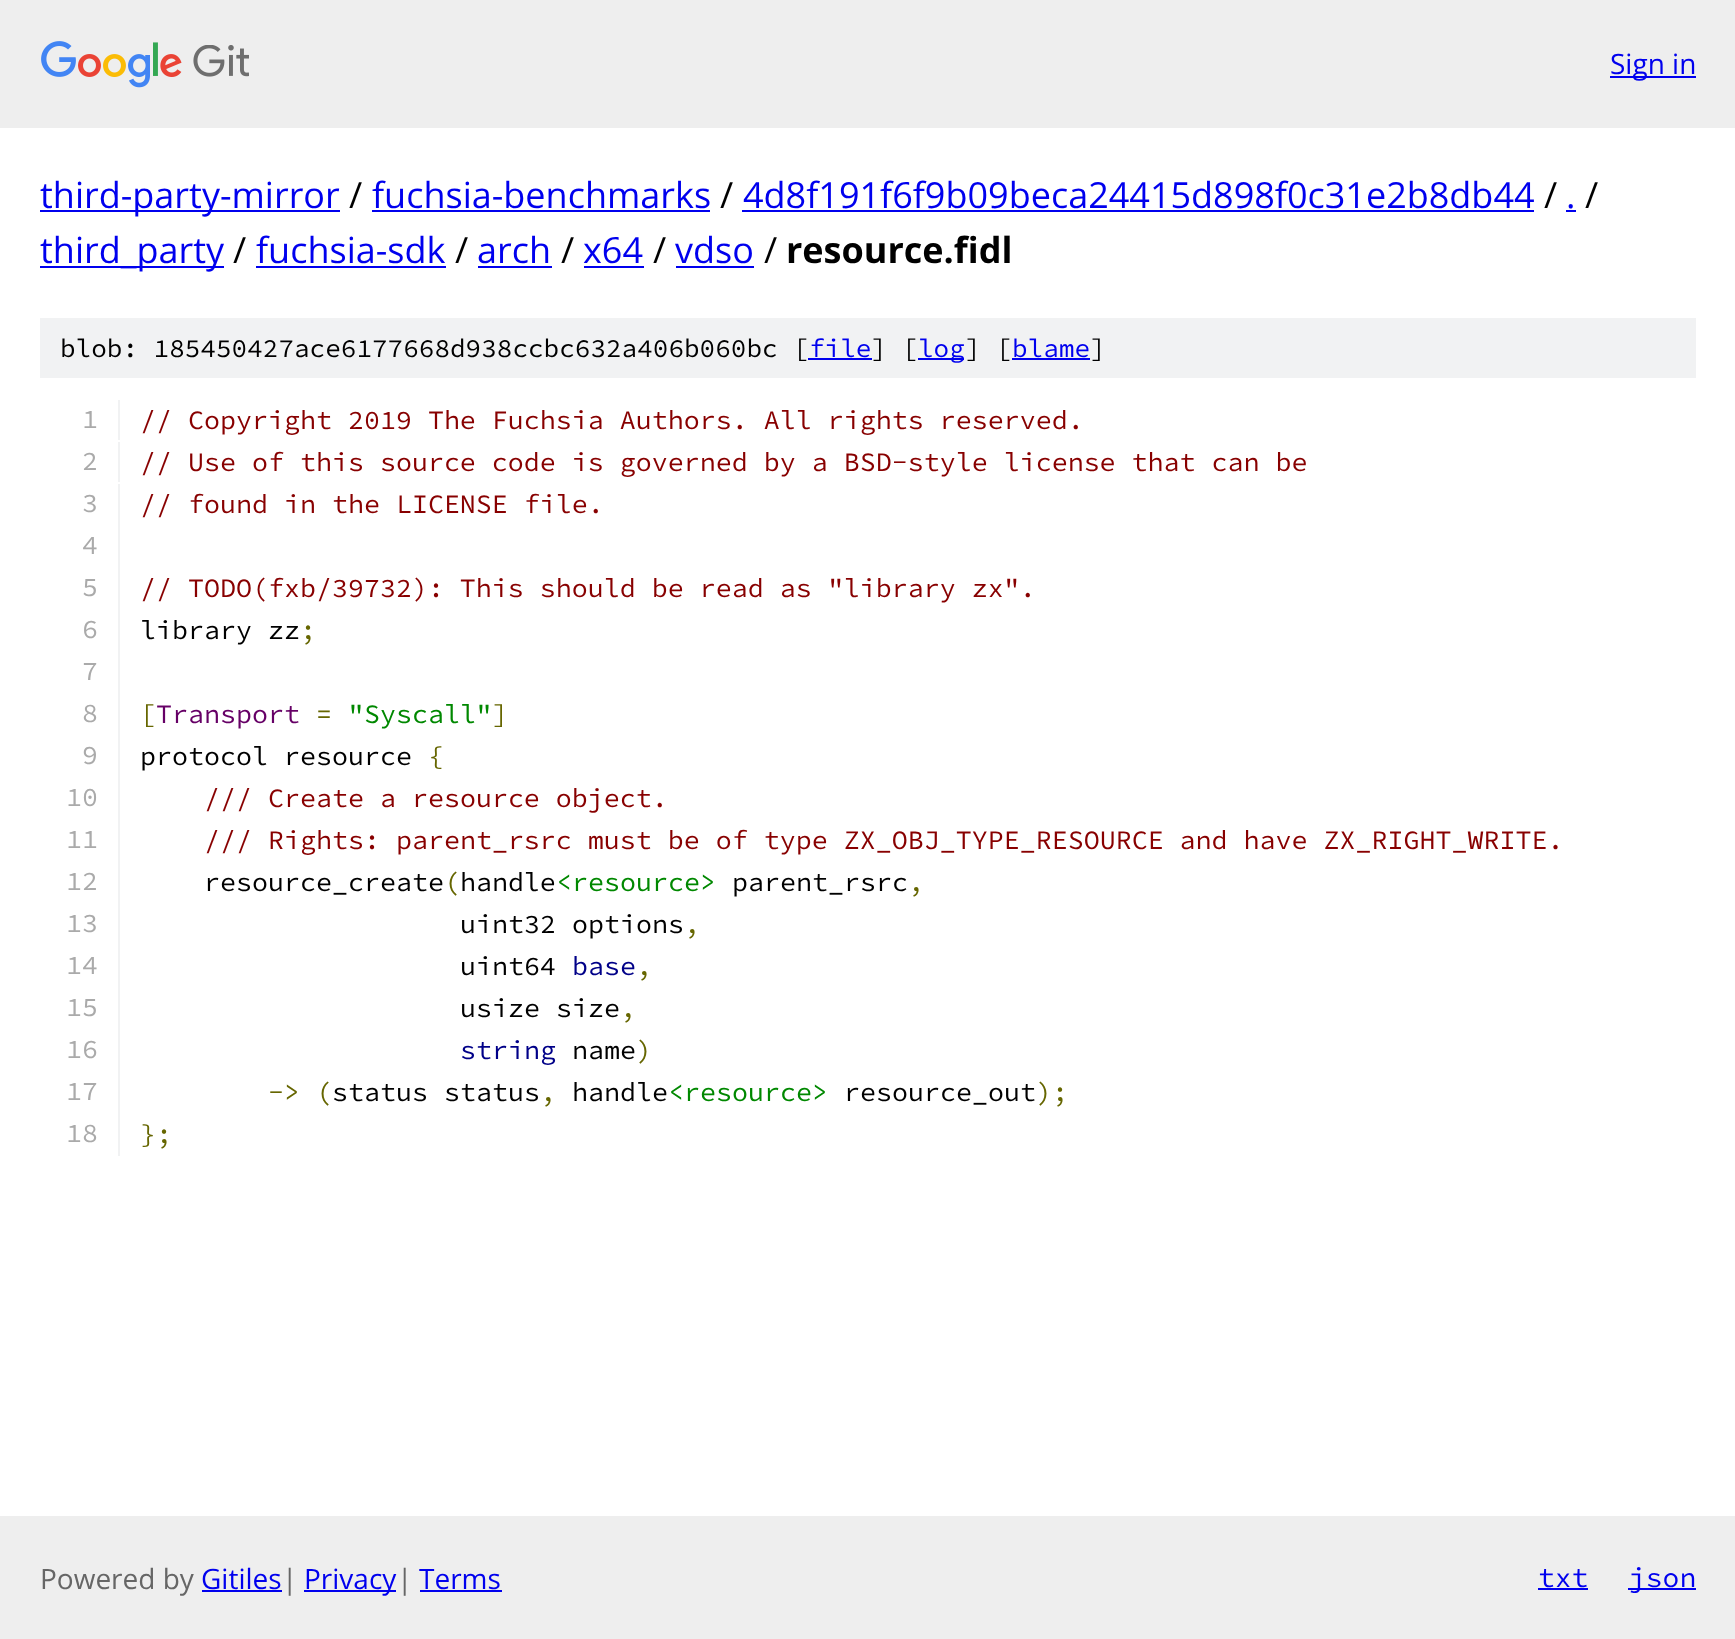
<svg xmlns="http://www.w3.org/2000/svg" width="1735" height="1639">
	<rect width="100%" height="100%" fill="#FFFFFF" />
	<rect x="0" y="0" width="1735" height="128" fill="#EEEEEE" />
	<image x="41" y="41" width="208" height="47" href="assets/img1.png" />
	<rect x="1610" y="76" width="86" height="2" fill="#0000EE" />
	<text x="1610" y="74" font-family="Open Sans" font-size="28" fill="#0000EE">Sign in</text>
	<rect x="40" y="210" width="300" height="2" fill="#0000EE" />
	<text x="40" y="208" font-family="Open Sans" font-size="36" fill="#0000EE">third-party-mirror</text>
	<text x="349" y="208" font-family="Open Sans" font-size="36" fill="#000000">/</text>
	<text x="372" y="208" font-family="Open Sans" font-size="36" fill="#0000EE">fuchsia-benchmarks</text>
	<rect x="372" y="210" width="338" height="2" fill="#0000EE" />
	<text x="720" y="208" font-family="Open Sans" font-size="36" fill="#000000">/</text>
	<text x="743" y="208" font-family="Open Sans" font-size="36" fill="#0000EE">4d8f191f6f9b09beca24415d898f0c31e2b8db44</text>
	<rect x="742" y="210" width="792" height="2" fill="#0000EE" />
	<text x="1544" y="208" font-family="Open Sans" font-size="36" fill="#000000">/</text>
	<text x="1566" y="208" font-family="Open Sans" font-size="36" fill="#0000EE">.</text>
	<rect x="1566" y="210" width="10" height="2" fill="#0000EE" />
	<text x="1585" y="208" font-family="Open Sans" font-size="36" fill="#000000">/</text>
	<rect x="40" y="266" width="184" height="2" fill="#0000EE" />
	<text x="40" y="263" font-family="Open Sans" font-size="36" fill="#0000EE">third_party</text>
	<text x="233" y="263" font-family="Open Sans" font-size="36" fill="#000000">/</text>
	<text x="256" y="263" font-family="Open Sans" font-size="36" fill="#0000EE">fuchsia-sdk</text>
	<rect x="256" y="266" width="190" height="2" fill="#0000EE" />
	<text x="455" y="263" font-family="Open Sans" font-size="36" fill="#000000">/</text>
	<text x="477" y="263" font-family="Open Sans" font-size="36" fill="#0000EE">arch</text>
	<rect x="478" y="266" width="74" height="2" fill="#0000EE" />
	<text x="561" y="263" font-family="Open Sans" font-size="36" fill="#000000">/</text>
	<text x="583" y="263" font-family="Open Sans" font-size="36" fill="#0000EE">x64</text>
	<rect x="584" y="266" width="60" height="2" fill="#0000EE" />
	<text x="653" y="263" font-family="Open Sans" font-size="36" fill="#000000">/</text>
	<text x="675" y="263" font-family="Open Sans" font-size="36" fill="#0000EE">vdso</text>
	<rect x="676" y="266" width="78" height="2" fill="#0000EE" />
	<text x="764" y="263" font-family="Open Sans" font-size="36" fill="#000000">/</text>
	<text x="786" y="263" font-family="Open Sans" font-size="36" font-weight="700" fill="#000000">resource.fidl</text>
	<rect x="40" y="318" width="1656" height="60" fill="#F1F2F3" />
	<text x="60" y="357" font-family="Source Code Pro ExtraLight" font-size="26" font-weight="200" fill="#000000">blob: 185450427ace6177668d938ccbc632a406b060bc [</text>
	<text x="809" y="357" font-family="Source Code Pro ExtraLight" font-size="26" font-weight="200" fill="#0000EE">file</text>
	<rect x="808" y="358" width="64" height="2" fill="#0000EE" />
	<text x="871" y="357" font-family="Source Code Pro ExtraLight" font-size="26" font-weight="200" fill="#000000">] [</text>
	<rect x="918" y="358" width="46" height="2" fill="#0000EE" />
	<text x="918" y="357" font-family="Source Code Pro ExtraLight" font-size="26" font-weight="200" fill="#0000EE">log</text>
	<text x="965" y="357" font-family="Source Code Pro ExtraLight" font-size="26" font-weight="200" fill="#000000">] [</text>
	<text x="1012" y="357" font-family="Source Code Pro ExtraLight" font-size="26" font-weight="200" fill="#0000EE">blame</text>
	<rect x="1012" y="358" width="78" height="2" fill="#0000EE" />
	<text x="1090" y="357" font-family="Source Code Pro ExtraLight" font-size="26" font-weight="200" fill="#000000">]</text>
	<rect x="118" y="400" width="2" height="40" fill="#F1F2F3" />
	<text x="82" y="428" font-family="Source Code Pro ExtraLight" font-size="26.67" font-weight="200" fill="#AAAAAA">1</text>
	<text x="140" y="429" font-family="Source Code Pro ExtraLight" font-size="26.67" font-weight="200" fill="#880000">// Copyright 2019 The Fuchsia Authors. All rights reserved.</text>
	<rect x="118" y="442" width="2" height="40" fill="#F1F2F3" />
	<text x="82" y="470" font-family="Source Code Pro ExtraLight" font-size="26.67" font-weight="200" fill="#AAAAAA">2</text>
	<text x="140" y="471" font-family="Source Code Pro ExtraLight" font-size="26.67" font-weight="200" fill="#880000">// Use of this source code is governed by a BSD-style license that can be</text>
	<rect x="118" y="484" width="2" height="672" fill="#F1F2F3" />
	<text x="82" y="512" font-family="Source Code Pro ExtraLight" font-size="26.67" font-weight="200" fill="#AAAAAA">3</text>
	<text x="140" y="513" font-family="Source Code Pro ExtraLight" font-size="26.67" font-weight="200" fill="#880000">// found in the LICENSE file.</text>
	<g font-family="Source Code Pro ExtraLight" font-size="26.67" font-weight="200" fill="#AAAAAA">
		<text x="82" y="554">4</text>
		<text x="82" y="596">5</text>
	</g>
	<text x="140" y="597" font-family="Source Code Pro ExtraLight" font-size="26.67" font-weight="200" fill="#880000">// TODO(fxb/39732): This should be read as "library zx".</text>
	<text x="82" y="638" font-family="Source Code Pro ExtraLight" font-size="26.67" font-weight="200" fill="#AAAAAA">6</text>
	<text x="140" y="639" font-family="Source Code Pro ExtraLight" font-size="26.67" font-weight="200" fill="#000000">library zz</text>
	<text x="300" y="639" font-family="Source Code Pro ExtraLight" font-size="26.67" font-weight="200" fill="#666600">;</text>
	<g font-family="Source Code Pro ExtraLight" font-size="26.67" font-weight="200" fill="#AAAAAA">
		<text x="82" y="680">7</text>
		<text x="82" y="722">8</text>
	</g>
	<text x="140" y="723" font-family="Source Code Pro ExtraLight" font-size="26.67" font-weight="200" fill="#666600">[</text>
	<text x="156" y="723" font-family="Source Code Pro ExtraLight" font-size="26.67" font-weight="200" fill="#660066">Transport</text>
	<text x="316" y="723" font-family="Source Code Pro ExtraLight" font-size="26.67" font-weight="200" fill="#666600">=</text>
	<text x="348" y="723" font-family="Source Code Pro ExtraLight" font-size="26.67" font-weight="200" fill="#008800">"Syscall"</text>
	<text x="492" y="723" font-family="Source Code Pro ExtraLight" font-size="26.67" font-weight="200" fill="#666600">]</text>
	<text x="82" y="764" font-family="Source Code Pro ExtraLight" font-size="26.67" font-weight="200" fill="#AAAAAA">9</text>
	<text x="140" y="765" font-family="Source Code Pro ExtraLight" font-size="26.67" font-weight="200" fill="#000000">protocol resource</text>
	<text x="428" y="765" font-family="Source Code Pro ExtraLight" font-size="26.67" font-weight="200" fill="#666600">{</text>
	<text x="66" y="806" font-family="Source Code Pro ExtraLight" font-size="26.67" font-weight="200" fill="#AAAAAA">10</text>
	<text x="204" y="807" font-family="Source Code Pro ExtraLight" font-size="26.67" font-weight="200" fill="#880000">/// Create a resource object.</text>
	<text x="66" y="848" font-family="Source Code Pro ExtraLight" font-size="26.67" font-weight="200" fill="#AAAAAA">11</text>
	<text x="204" y="849" font-family="Source Code Pro ExtraLight" font-size="26.67" font-weight="200" fill="#880000">/// Rights: parent_rsrc must be of type ZX_OBJ_TYPE_RESOURCE and have ZX_RIGHT_WRITE.</text>
	<text x="66" y="890" font-family="Source Code Pro ExtraLight" font-size="26.67" font-weight="200" fill="#AAAAAA">12</text>
	<text x="204" y="891" font-family="Source Code Pro ExtraLight" font-size="26.67" font-weight="200" fill="#000000">resource_create handle</text>
	<text x="444" y="891" font-family="Source Code Pro ExtraLight" font-size="26.67" font-weight="200" fill="#666600">(</text>
	<text x="556" y="891" font-family="Source Code Pro ExtraLight" font-size="26.67" font-weight="200" fill="#008800">&lt;resource&gt;</text>
	<text x="732" y="891" font-family="Source Code Pro ExtraLight" font-size="26.67" font-weight="200" fill="#000000">parent_rsrc</text>
	<text x="908" y="891" font-family="Source Code Pro ExtraLight" font-size="26.67" font-weight="200" fill="#666600">,</text>
	<text x="66" y="932" font-family="Source Code Pro ExtraLight" font-size="26.67" font-weight="200" fill="#AAAAAA">13</text>
	<text x="460" y="933" font-family="Source Code Pro ExtraLight" font-size="26.67" font-weight="200" fill="#000000">uint32 options</text>
	<text x="684" y="933" font-family="Source Code Pro ExtraLight" font-size="26.67" font-weight="200" fill="#666600">,</text>
	<text x="66" y="974" font-family="Source Code Pro ExtraLight" font-size="26.67" font-weight="200" fill="#AAAAAA">14</text>
	<text x="460" y="975" font-family="Source Code Pro ExtraLight" font-size="26.67" font-weight="200" fill="#000000">uint64</text>
	<text x="572" y="975" font-family="Source Code Pro ExtraLight" font-size="26.67" font-weight="200" fill="#000088">base</text>
	<text x="636" y="975" font-family="Source Code Pro ExtraLight" font-size="26.67" font-weight="200" fill="#666600">,</text>
	<text x="66" y="1016" font-family="Source Code Pro ExtraLight" font-size="26.67" font-weight="200" fill="#AAAAAA">15</text>
	<text x="460" y="1017" font-family="Source Code Pro ExtraLight" font-size="26.67" font-weight="200" fill="#000000">usize size</text>
	<text x="620" y="1017" font-family="Source Code Pro ExtraLight" font-size="26.67" font-weight="200" fill="#666600">,</text>
	<text x="66" y="1058" font-family="Source Code Pro ExtraLight" font-size="26.67" font-weight="200" fill="#AAAAAA">16</text>
	<text x="460" y="1059" font-family="Source Code Pro ExtraLight" font-size="26.67" font-weight="200" fill="#000088">string</text>
	<text x="572" y="1059" font-family="Source Code Pro ExtraLight" font-size="26.67" font-weight="200" fill="#000000">name</text>
	<text x="636" y="1059" font-family="Source Code Pro ExtraLight" font-size="26.67" font-weight="200" fill="#666600">)</text>
	<text x="66" y="1100" font-family="Source Code Pro ExtraLight" font-size="26.67" font-weight="200" fill="#AAAAAA">17</text>
	<text x="268" y="1101" font-family="Source Code Pro ExtraLight" font-size="26.67" font-weight="200" fill="#666600">-&gt; (</text>
	<text x="332" y="1101" font-family="Source Code Pro ExtraLight" font-size="26.67" font-weight="200" fill="#000000">status status</text>
	<text x="540" y="1101" font-family="Source Code Pro ExtraLight" font-size="26.67" font-weight="200" fill="#666600">,</text>
	<text x="572" y="1101" font-family="Source Code Pro ExtraLight" font-size="26.67" font-weight="200" fill="#000000">handle</text>
	<text x="668" y="1101" font-family="Source Code Pro ExtraLight" font-size="26.67" font-weight="200" fill="#008800">&lt;resource&gt;</text>
	<text x="844" y="1101" font-family="Source Code Pro ExtraLight" font-size="26.67" font-weight="200" fill="#000000">resource_out</text>
	<text x="1036" y="1101" font-family="Source Code Pro ExtraLight" font-size="26.67" font-weight="200" fill="#666600">);</text>
	<text x="66" y="1142" font-family="Source Code Pro ExtraLight" font-size="26.67" font-weight="200" fill="#AAAAAA">18</text>
	<text x="140" y="1143" font-family="Source Code Pro ExtraLight" font-size="26.67" font-weight="200" fill="#666600">};</text>
	<rect x="0" y="1516" width="1735" height="123" fill="#EEEEEE" />
	<text x="40" y="1589" font-family="Open Sans" font-size="28" fill="#666666">Powered by</text>
	<text x="201" y="1589" font-family="Open Sans" font-size="28" fill="#0000EE">Gitiles</text>
	<rect x="202" y="1590" width="80" height="2" fill="#0000EE" />
	<text x="282" y="1589" font-family="Open Sans" font-size="28" fill="#666666">|</text>
	<rect x="304" y="1590" width="92" height="2" fill="#0000EE" />
	<text x="304" y="1589" font-family="Open Sans" font-size="28" fill="#0000EE">Privacy</text>
	<text x="397" y="1589" font-family="Open Sans" font-size="28" fill="#666666">|</text>
	<text x="419" y="1589" font-family="Open Sans" font-size="28" fill="#0000EE">Terms</text>
	<rect x="420" y="1590" width="82" height="2" fill="#0000EE" />
	<text x="1538" y="1587" font-family="Source Code Pro ExtraLight" font-size="28" font-weight="200" fill="#0000EE">txt</text>
	<rect x="1538" y="1588" width="50" height="2" fill="#0000EE" />
	<rect x="1628" y="1588" width="68" height="2" fill="#0000EE" />
	<text x="1629" y="1587" font-family="Source Code Pro ExtraLight" font-size="28" font-weight="200" fill="#0000EE">json</text>
</svg>
